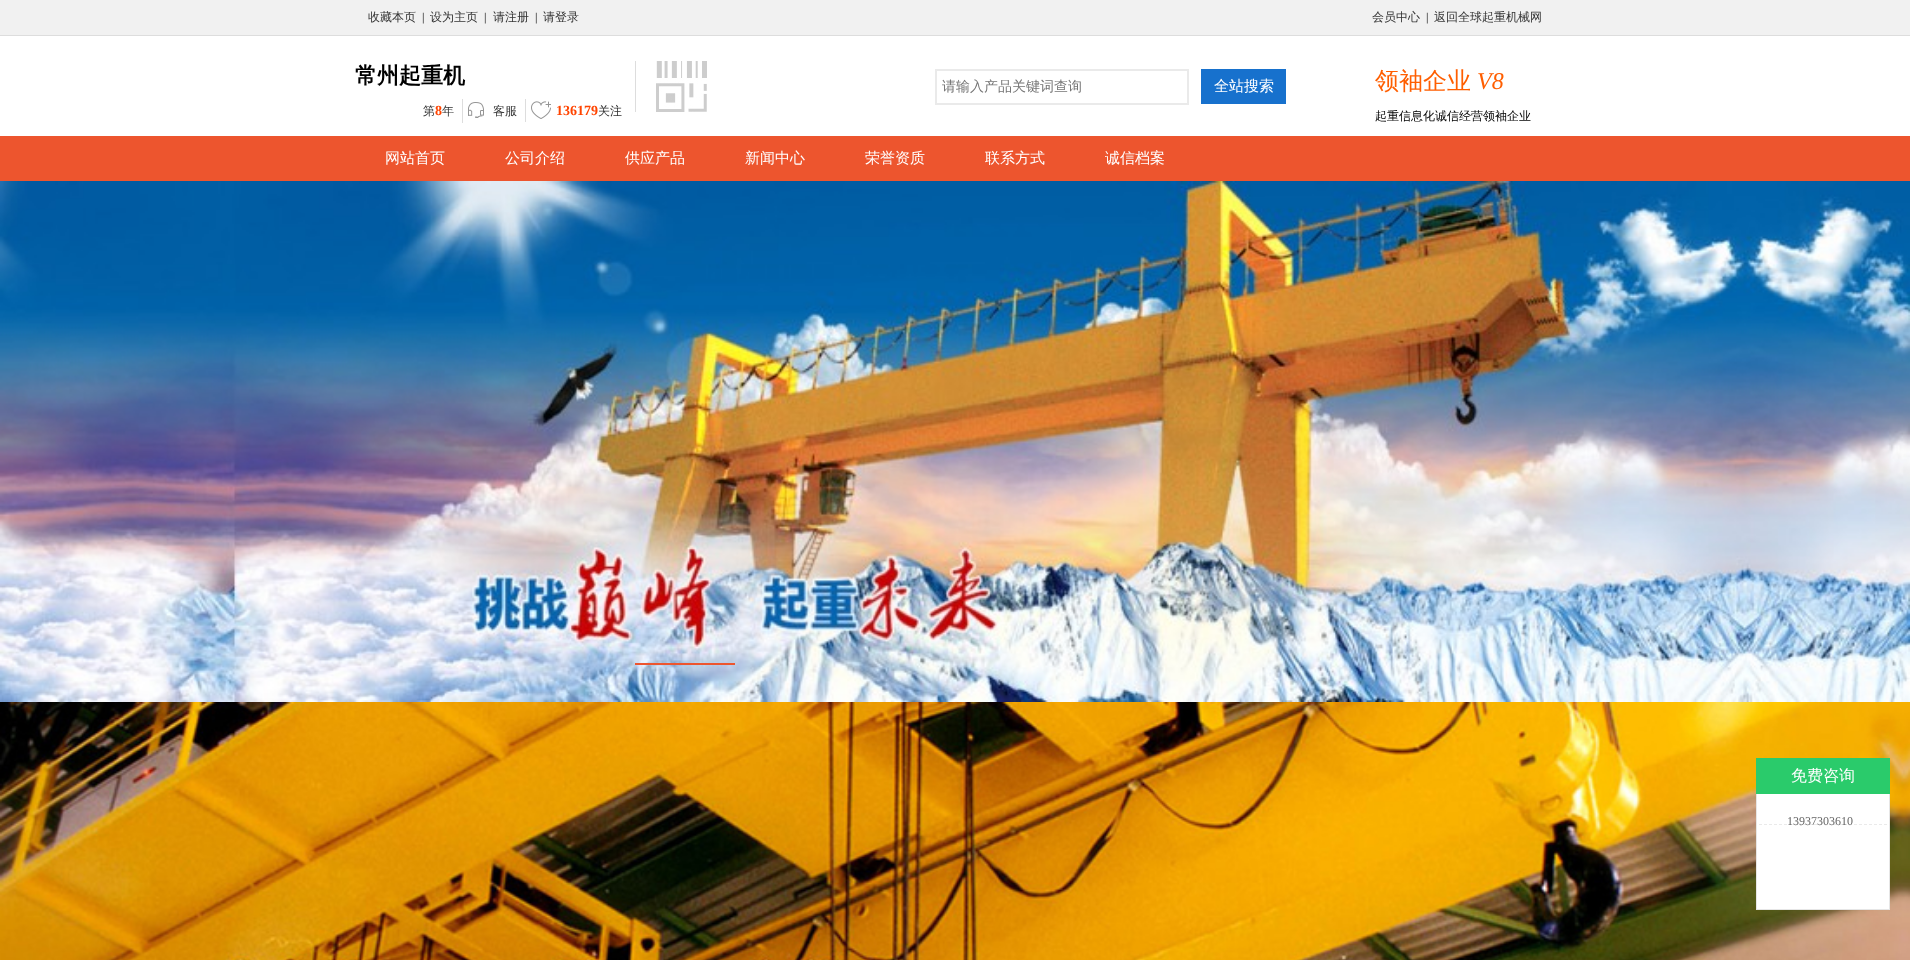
<svg xmlns="http://www.w3.org/2000/svg" width="1910" height="960">
	<rect width="100%" height="100%" fill="#F1F1F1" />
	<rect x="0" y="35" width="1910" height="1" fill="#DDDDDD" />
	<text x="368" y="21" font-family="WenQuanYi Zen Hei" font-size="12" font-weight="500" fill="#333333">收藏本页</text>
	<text x="422" y="21" font-family="Liberation Serif" font-size="12" fill="#000000">|</text>
	<text x="430" y="21" font-family="WenQuanYi Zen Hei" font-size="12" font-weight="500" fill="#333333">设为主页</text>
	<text x="484" y="21" font-family="Liberation Serif" font-size="12" fill="#000000">|</text>
	<text x="493" y="21" font-family="WenQuanYi Zen Hei" font-size="12" font-weight="500" fill="#333333">请注册</text>
	<text x="535" y="21" font-family="Liberation Serif" font-size="12" fill="#000000">|</text>
	<g font-family="WenQuanYi Zen Hei" font-size="12" font-weight="500" fill="#333333">
		<text x="543" y="21">请登录</text>
		<text x="1372" y="21">会员中心</text>
	</g>
	<text x="1426" y="21" font-family="Liberation Serif" font-size="12" fill="#000000">|</text>
	<text x="1434" y="21" font-family="WenQuanYi Zen Hei" font-size="12" font-weight="500" fill="#333333">返回全球起重机械网</text>
	<rect x="0" y="36" width="1910" height="100" fill="#FFFFFF" />
	<text x="355" y="83" font-family="WenQuanYi Zen Hei" font-size="22" font-weight="700" fill="#000000">常州起重机</text>
	<rect x="462" y="99" width="1" height="24" fill="#DDDDDD" />
	<text x="423" y="115" font-family="WenQuanYi Zen Hei" font-size="12" font-weight="500" fill="#333333">第</text>
	<text x="435" y="115" font-family="Liberation Serif" font-size="14" font-weight="700" fill="#FF4400">8</text>
	<text x="442" y="115" font-family="WenQuanYi Zen Hei" font-size="12" font-weight="500" fill="#333333">年</text>
	<rect x="525" y="99" width="1" height="23" fill="#DDDDDD" />
	<image x="468" y="102" width="16" height="16" href="assets/img1.png" />
	<text x="493" y="115" font-family="WenQuanYi Zen Hei" font-size="12" font-weight="500" fill="#333333">客服</text>
	<image x="531" y="101" width="20" height="18" href="assets/img2.png" />
	<text x="556" y="115" font-family="Liberation Serif" font-size="14" font-weight="700" fill="#FF4400">136179</text>
	<text x="598" y="115" font-family="WenQuanYi Zen Hei" font-size="12" font-weight="500" fill="#333333">关注</text>
	<rect x="635" y="61" width="1" height="51" fill="#DDDDDD" />
	<image x="656" y="61" width="51" height="51" href="assets/img3.png" />
	<rect x="936" y="70" width="252" height="34" fill="none" stroke="#EAEAEA" stroke-width="2" />
	<text x="942" y="91" font-family="WenQuanYi Zen Hei" font-size="14" font-weight="500" fill="#757575">请输入产品关键词查询</text>
	<rect x="1201" y="69" width="85" height="35" fill="#1771CD" />
	<text x="1214" y="91" font-family="WenQuanYi Zen Hei" font-size="15" font-weight="500" fill="#FFFFFF">全站搜索</text>
	<text x="1375" y="89" font-family="WenQuanYi Zen Hei" font-size="24" font-weight="500" fill="#FF5E00">领袖企业</text>
	<text x="1477" y="89" font-family="Liberation Serif" font-size="24" font-style="italic" fill="#FF5E00">V8</text>
	<text x="1375" y="120" font-family="WenQuanYi Zen Hei" font-size="12" font-weight="500" fill="#000000">起重信息化诚信经营领袖企业</text>
	<rect x="0" y="136" width="1910" height="45" fill="#ED552E" />
	<g font-family="WenQuanYi Zen Hei" font-size="15" font-weight="500" fill="#FFFFFF">
		<text x="385" y="163">网站首页</text>
		<text x="505" y="163">公司介绍</text>
		<text x="625" y="163">供应产品</text>
		<text x="745" y="163">新闻中心</text>
		<text x="865" y="163">荣誉资质</text>
		<text x="985" y="163">联系方式</text>
		<text x="1105" y="163">诚信档案</text>
	</g>
	<image x="0" y="181" width="1910" height="521" href="assets/img4.png" />
	<image x="0" y="702" width="1910" height="258" href="assets/img5.png" />
	<rect x="635" y="663" width="100" height="2" fill="#ED552E" />
	<rect x="1757" y="794" width="132" height="115" fill="#FFFFFF" />
	<rect x="1756.5" y="758.5" width="133" height="151" fill="none" stroke="#E6E6E6" />
	<rect x="1756" y="758" width="134" height="36" fill="#2ACB6B" />
	<text x="1791" y="781" font-family="WenQuanYi Zen Hei" font-size="16" font-weight="500" fill="#FFFFFF">免费咨询</text>
	<path d="M1759 824.5H1887" fill="none" stroke="#EAEAEA" stroke-dasharray="3 2" />
	<text x="1787" y="825" font-family="Liberation Serif" font-size="12" fill="#666666">13937303610</text>
</svg>
